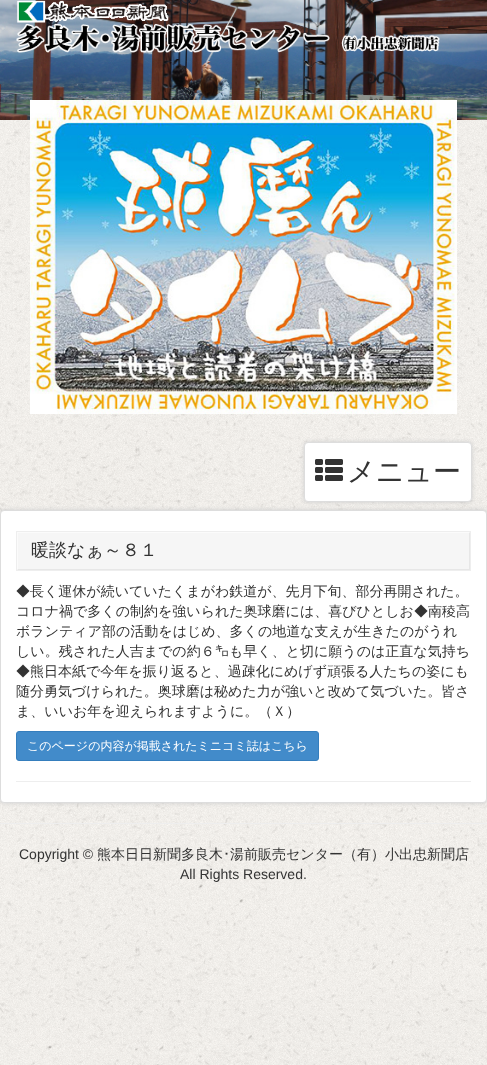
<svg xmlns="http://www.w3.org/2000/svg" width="487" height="1065">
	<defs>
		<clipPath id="clip1"><rect x="17" y="532" width="453" height="38" /></clipPath>
	</defs>
	<rect width="100%" height="100%" fill="#FFFFFF" />
	<image x="0" y="120" width="487" height="945" href="assets/img1.png" />
	<image x="0" y="0" width="487" height="120" href="assets/img2.png" />
	<image x="16" y="0" width="424" height="53" href="assets/img3.png" />
	<image x="30" y="100" width="427" height="314" href="assets/img4.png" />
	<rect x="304" y="442" width="168" height="60" rx="4" fill="#CCCCCC" filter="blur(2px)" />
	<rect x="304.5" y="442.5" width="167" height="59" rx="3.5" fill="#FFFFFF" stroke="#DDDDDD" />
	<image x="315" y="459" width="28" height="22" href="assets/img5.png" />
	<text x="347" y="481" font-family="WenQuanYi Zen Hei" font-size="28" font-weight="500" fill="#333333">メニュー</text>
	<rect x="0" y="510" width="487" height="293" rx="4" fill="#CCCCCC" filter="blur(2px)" />
	<rect x="0.5" y="510.5" width="486" height="292" rx="3.5" fill="#FFFFFF" stroke="#DDDDDD" />
	<rect x="17" y="532" width="452" height="37" fill="#F6F6F6" />
	<g clip-path="url(#clip1)">
		<path d="M-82 433H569V669H-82ZM16 531H469V569H16Z" fill="#E7E7E7" fill-rule="evenodd" />
		<path d="M-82 433H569V669H-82ZM18 533H471V571H18Z" fill="#FFFFFF" fill-opacity="0.5" fill-rule="evenodd" />
	</g>
	<rect x="16.5" y="531.5" width="454" height="39" fill="none" stroke="#EEEEEE" />
	<text x="31" y="556" font-family="WenQuanYi Zen Hei" font-size="18" font-weight="500" fill="#333333">暖談なぁ～８１</text>
	<g font-family="WenQuanYi Zen Hei" font-size="14" font-weight="500" fill="#333333">
		<text x="16" y="596">◆長く運休が続いていたくまがわ鉄道が、先月下旬、部分再開された。</text>
		<text x="16" y="616">コロナ禍で多くの制約を強いられた奥球磨には、喜びひとしお◆南稜高</text>
		<text x="16" y="636">ボランティア部の活動をはじめ、多くの地道な支えが生きたのがうれ</text>
		<text x="16" y="656">しい。残された人吉までの約６</text>
	</g>
	<text x="215" y="656" font-family="IPAPGothic" font-size="14" fill="#333333">㌔</text>
	<g font-family="WenQuanYi Zen Hei" font-size="14" font-weight="500" fill="#333333">
		<text x="229" y="656">も早く、と切に願うのは正直な気持ち</text>
		<text x="16" y="676">◆熊日本紙で今年を振り返ると、過疎化にめげず頑張る人たちの姿にも</text>
		<text x="16" y="696">随分勇気づけられた。奥球磨は秘めた力が強いと改めて気づいた。皆さ</text>
		<text x="16" y="716">ま、いいお年を迎えられますように。（Ｘ）</text>
	</g>
	<rect x="16.5" y="731.5" width="302" height="29" rx="2.5" fill="#428BCA" stroke="#357EBD" />
	<text x="27" y="750" font-family="WenQuanYi Zen Hei" font-size="12" font-weight="500" fill="#FFFFFF">このページの内容が掲載されたミニコミ誌はこちら</text>
	<rect x="16" y="781" width="455" height="1" fill="#EEEEEE" />
	<rect x="0" y="823" width="487" height="1" fill="#EEEEEE" />
	<text x="19" y="859" font-family="Liberation Sans" font-size="14" fill="#333333">Copyright ©</text>
	<text x="97" y="859" font-family="WenQuanYi Zen Hei" font-size="14" font-weight="500" fill="#333333">熊本日日新聞多良木</text>
	<text x="223" y="859" font-family="IPAPGothic" font-size="14" fill="#333333">･</text>
	<text x="230" y="859" font-family="WenQuanYi Zen Hei" font-size="14" font-weight="500" fill="#333333">湯前販売センター（有）小出忠新聞店</text>
	<text x="180" y="879" font-family="Liberation Sans" font-size="14" fill="#333333">All Rights Reserved.</text>
</svg>
